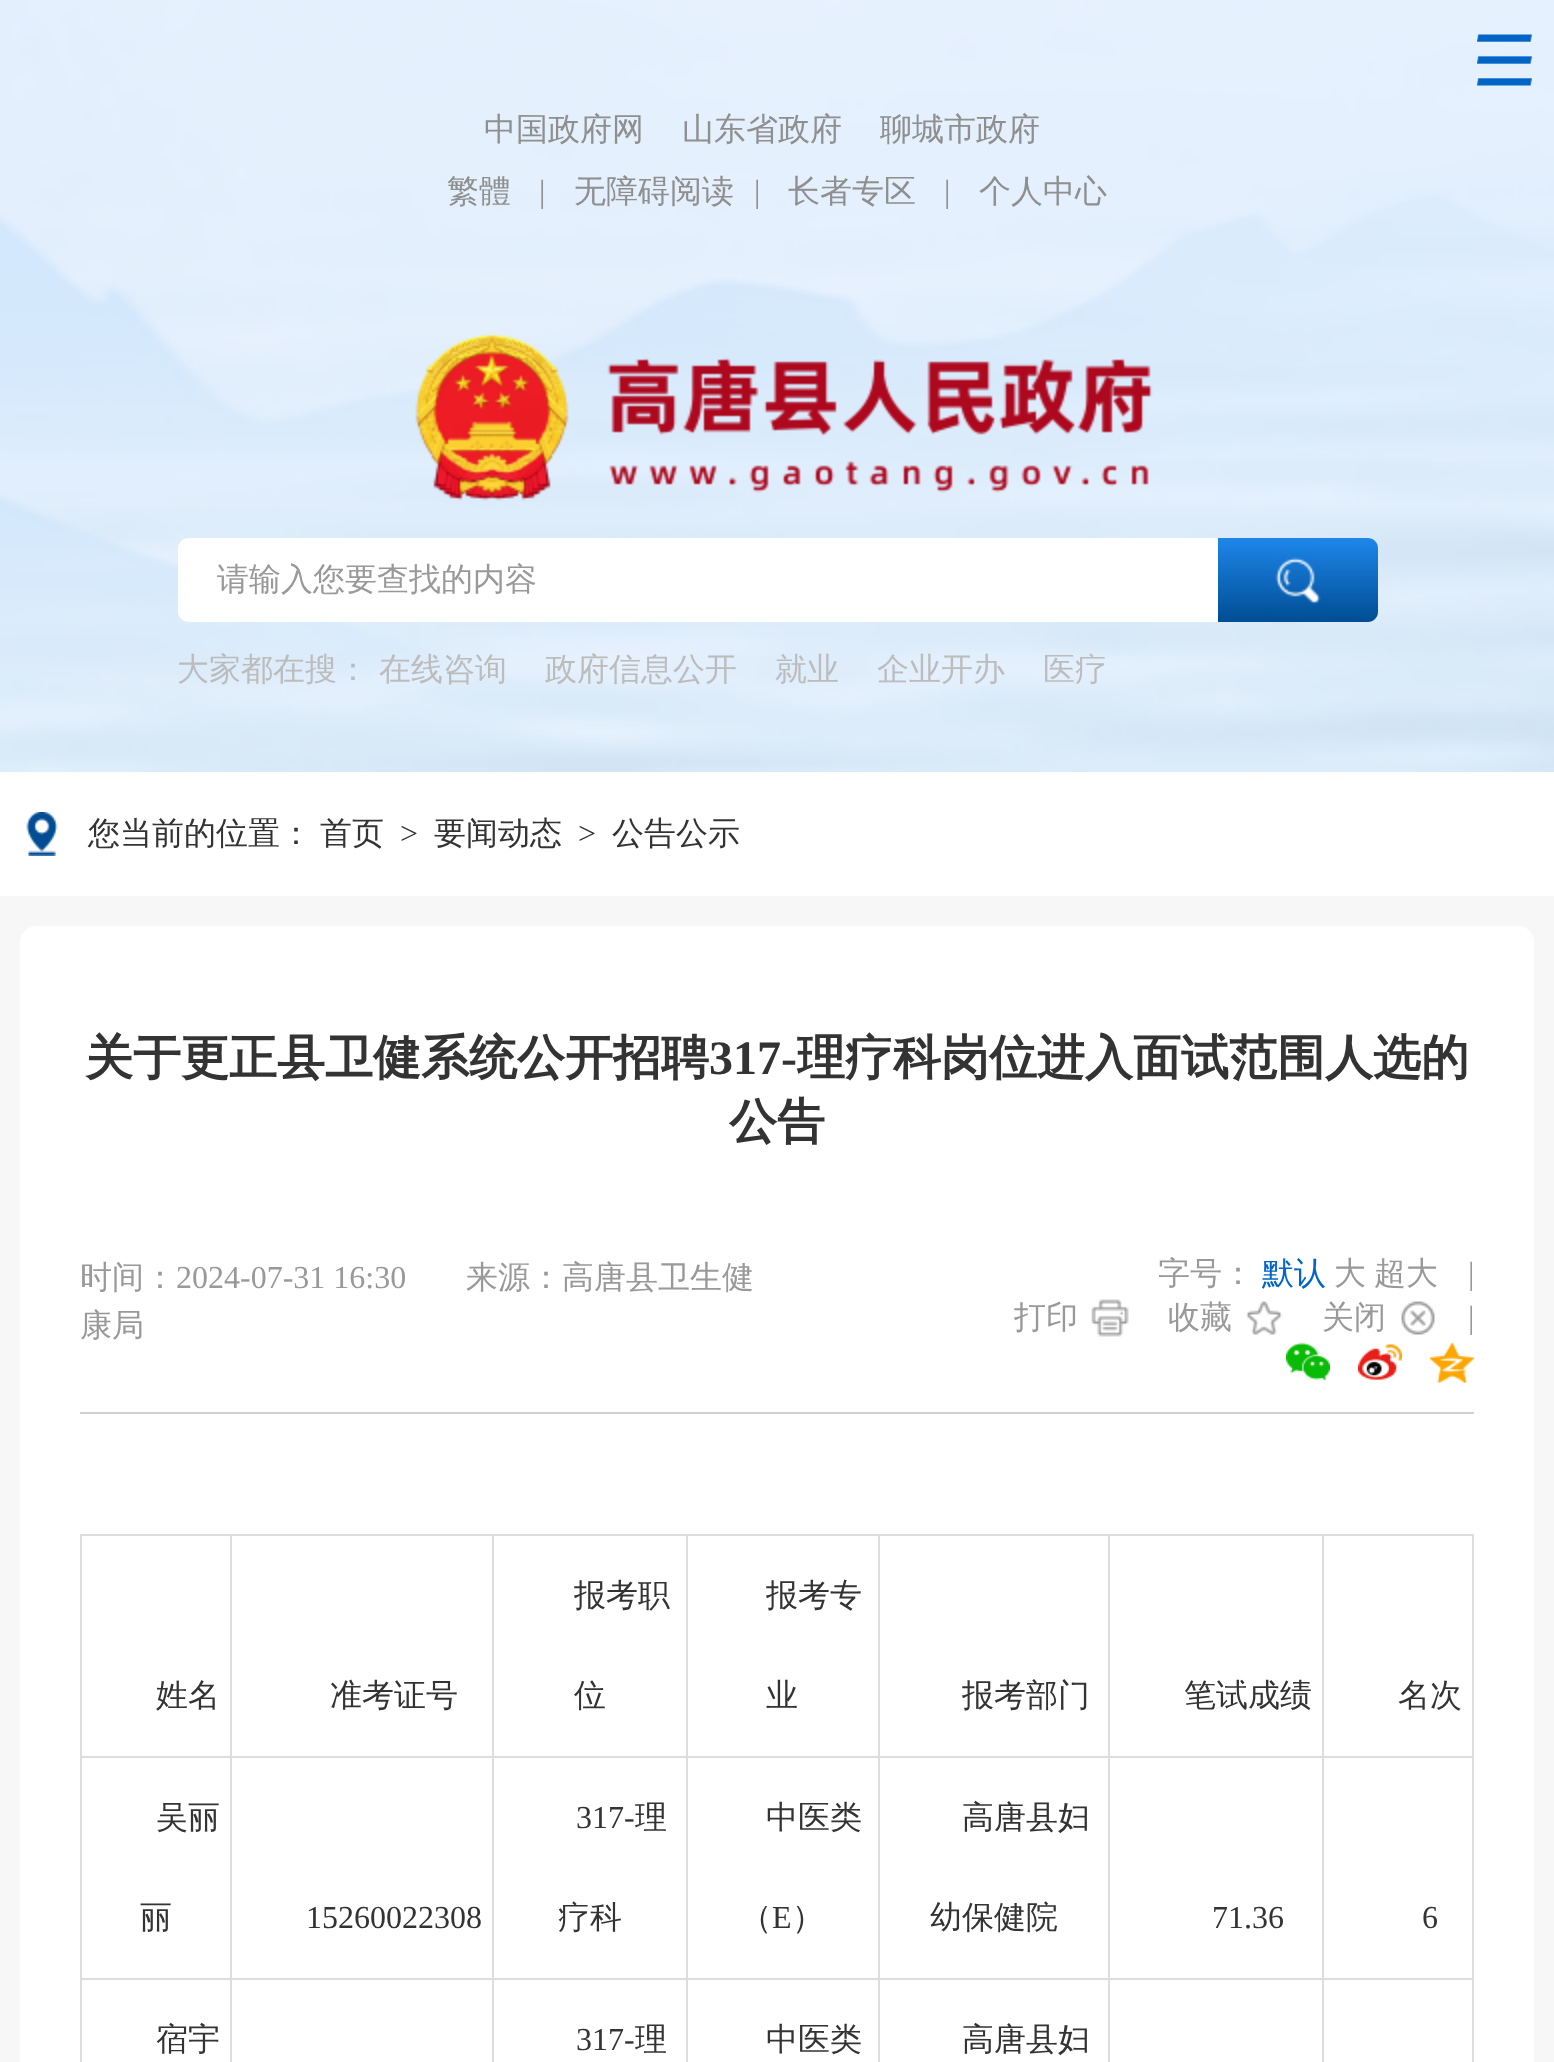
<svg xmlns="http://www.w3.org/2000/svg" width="1554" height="2062">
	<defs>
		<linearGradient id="g1" gradientUnits="userSpaceOnUse" x1="1298" y1="538" x2="1298" y2="622"><stop offset="0" stop-color="#1E86EA" /><stop offset="1" stop-color="#004D93" /></linearGradient>
	</defs>
	<rect width="100%" height="100%" fill="#F7F7F7" />
	<image x="0" y="0" width="1554" height="772" href="assets/img1.png" />
	<image x="1477" y="34" width="55" height="52" href="assets/img2.png" />
	<g font-family="WenQuanYi Zen Hei" font-size="32" font-weight="500" fill="#8F8F8F">
		<text x="484" y="140">中国政府网</text>
		<text x="682" y="140">山东省政府</text>
		<text x="880" y="140">聊城市政府</text>
		<text x="447" y="202">繁體</text>
	</g>
	<text x="539" y="202" font-family="Liberation Serif" font-size="32" fill="#8F8F8F">|</text>
	<text x="574" y="202" font-family="WenQuanYi Zen Hei" font-size="32" font-weight="500" fill="#8F8F8F">无障碍阅读</text>
	<text x="754" y="202" font-family="Liberation Serif" font-size="32" fill="#8F8F8F">|</text>
	<text x="788" y="202" font-family="WenQuanYi Zen Hei" font-size="32" font-weight="500" fill="#8F8F8F">长者专区</text>
	<text x="944" y="202" font-family="Liberation Serif" font-size="32" fill="#8F8F8F">|</text>
	<text x="979" y="202" font-family="WenQuanYi Zen Hei" font-size="32" font-weight="500" fill="#8F8F8F">个人中心</text>
	<image x="415" y="333" width="738" height="168" href="assets/img3.png" />
	<rect x="178" y="538" width="1200" height="84" rx="10" fill="#FFFFFF" />
	<text x="217" y="590" font-family="WenQuanYi Zen Hei" font-size="32" font-weight="500" fill="#999999">请输入您要查找的内容</text>
	<path d="M1218 538H1368C1373.5 538 1378 542.5 1378 548V612C1378 617.5 1373.5 622 1368 622H1218Z" fill="url(#g1)" />
	<image x="1275" y="557" width="46" height="47" href="assets/img4.png" />
	<g font-family="WenQuanYi Zen Hei" font-size="32" font-weight="500" fill="#BCBCBC">
		<text x="177" y="680">大家都在搜：</text>
		<text x="379" y="680">在线咨询</text>
		<text x="545" y="680">政府信息公开</text>
		<text x="775" y="680">就业</text>
		<text x="877" y="680">企业开办</text>
		<text x="1043" y="680">医疗</text>
	</g>
	<rect x="0" y="772" width="1554" height="124" fill="#FFFFFF" />
	<image x="26" y="812" width="32" height="44" href="assets/img5.png" />
	<g font-family="WenQuanYi Zen Hei" font-size="32" font-weight="500" fill="#333333">
		<text x="88" y="844">您当前的位置：</text>
		<text x="320" y="844">首页</text>
	</g>
	<text x="400" y="844" font-family="Liberation Serif" font-size="32" fill="#333333">&gt;</text>
	<text x="434" y="844" font-family="WenQuanYi Zen Hei" font-size="32" font-weight="500" fill="#333333">要闻动态</text>
	<text x="578" y="844" font-family="Liberation Serif" font-size="32" fill="#333333">&gt;</text>
	<text x="612" y="844" font-family="WenQuanYi Zen Hei" font-size="32" font-weight="500" fill="#333333">公告公示</text>
	<rect x="20" y="926" width="1514" height="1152" rx="16" fill="#FFFFFF" />
	<text x="85" y="1074" font-family="WenQuanYi Zen Hei" font-size="48" font-weight="700" fill="#333333">关于更正县卫健系统公开招聘</text>
	<text x="709" y="1074" font-family="Liberation Serif" font-size="48" font-weight="700" fill="#333333">317-</text>
	<g font-family="WenQuanYi Zen Hei" font-size="48" font-weight="700" fill="#333333">
		<text x="797" y="1074">理疗科岗位进入面试范围人选的</text>
		<text x="729" y="1138">公告</text>
	</g>
	<rect x="80" y="1412" width="1394" height="2" fill="#D1D1D1" />
	<text x="80" y="1288" font-family="WenQuanYi Zen Hei" font-size="32" font-weight="500" fill="#999999">时间：</text>
	<text x="176" y="1288" font-family="Liberation Serif" font-size="32" fill="#999999">2024-07-31 16:30</text>
	<g font-family="WenQuanYi Zen Hei" font-size="32" font-weight="500" fill="#999999">
		<text x="466" y="1288">来源：高唐县卫生健</text>
		<text x="80" y="1336">康局</text>
		<text x="1158" y="1284">字号：</text>
	</g>
	<text x="1262" y="1284" font-family="WenQuanYi Zen Hei" font-size="32" font-weight="500" fill="#0065C6">默认</text>
	<g font-family="WenQuanYi Zen Hei" font-size="32" font-weight="500" fill="#999999">
		<text x="1334" y="1284">大</text>
		<text x="1374" y="1284">超大</text>
	</g>
	<text x="1468" y="1284" font-family="Liberation Serif" font-size="32" fill="#999999">|</text>
	<image x="1091" y="1299" width="38" height="38" href="assets/img6.png" />
	<text x="1014" y="1328" font-family="WenQuanYi Zen Hei" font-size="32" font-weight="500" fill="#999999">打印</text>
	<image x="1246" y="1301" width="37" height="34" href="assets/img7.png" />
	<text x="1168" y="1328" font-family="WenQuanYi Zen Hei" font-size="32" font-weight="500" fill="#999999">收藏</text>
	<image x="1401" y="1301" width="34" height="34" href="assets/img8.png" />
	<text x="1322" y="1328" font-family="WenQuanYi Zen Hei" font-size="32" font-weight="500" fill="#999999">关闭</text>
	<text x="1468" y="1328" font-family="Liberation Serif" font-size="32" fill="#999999">|</text>
	<image x="1286" y="1342" width="44" height="39" href="assets/img9.png" />
	<image x="1358" y="1344" width="44" height="36" href="assets/img10.png" />
	<image x="1430" y="1342" width="44" height="41" href="assets/img11.png" />
	<rect x="1322" y="1534" width="152" height="2" fill="#DDDDDD" />
	<rect x="1322" y="1756" width="152" height="2" fill="#DDDDDD" />
	<rect x="1322" y="1978" width="152" height="2" fill="#DDDDDD" />
	<rect x="1322" y="1978" width="2" height="84" fill="#DDDDDD" />
	<rect x="1108" y="1978" width="216" height="2" fill="#DDDDDD" />
	<rect x="1322" y="1756" width="2" height="224" fill="#DDDDDD" />
	<rect x="1108" y="1756" width="216" height="2" fill="#DDDDDD" />
	<rect x="1322" y="1534" width="2" height="224" fill="#DDDDDD" />
	<rect x="1108" y="1534" width="216" height="2" fill="#DDDDDD" />
	<rect x="1108" y="1978" width="2" height="84" fill="#DDDDDD" />
	<rect x="878" y="1978" width="232" height="2" fill="#DDDDDD" />
	<rect x="1108" y="1756" width="2" height="224" fill="#DDDDDD" />
	<rect x="878" y="1756" width="232" height="2" fill="#DDDDDD" />
	<rect x="1108" y="1534" width="2" height="224" fill="#DDDDDD" />
	<rect x="878" y="1534" width="232" height="2" fill="#DDDDDD" />
	<rect x="878" y="1978" width="2" height="84" fill="#DDDDDD" />
	<rect x="686" y="1978" width="194" height="2" fill="#DDDDDD" />
	<rect x="878" y="1756" width="2" height="224" fill="#DDDDDD" />
	<rect x="686" y="1756" width="194" height="2" fill="#DDDDDD" />
	<rect x="878" y="1534" width="2" height="224" fill="#DDDDDD" />
	<rect x="686" y="1534" width="194" height="2" fill="#DDDDDD" />
	<rect x="686" y="1978" width="2" height="84" fill="#DDDDDD" />
	<rect x="492" y="1978" width="196" height="2" fill="#DDDDDD" />
	<rect x="686" y="1756" width="2" height="224" fill="#DDDDDD" />
	<rect x="492" y="1756" width="196" height="2" fill="#DDDDDD" />
	<rect x="686" y="1534" width="2" height="224" fill="#DDDDDD" />
	<rect x="492" y="1534" width="196" height="2" fill="#DDDDDD" />
	<rect x="492" y="1978" width="2" height="84" fill="#DDDDDD" />
	<rect x="230" y="1978" width="264" height="2" fill="#DDDDDD" />
	<rect x="492" y="1756" width="2" height="224" fill="#DDDDDD" />
	<rect x="230" y="1756" width="264" height="2" fill="#DDDDDD" />
	<rect x="492" y="1534" width="2" height="224" fill="#DDDDDD" />
	<rect x="230" y="1534" width="264" height="2" fill="#DDDDDD" />
	<rect x="230" y="1978" width="2" height="84" fill="#DDDDDD" />
	<rect x="80" y="1978" width="152" height="2" fill="#DDDDDD" />
	<rect x="230" y="1756" width="2" height="224" fill="#DDDDDD" />
	<rect x="80" y="1756" width="152" height="2" fill="#DDDDDD" />
	<rect x="230" y="1534" width="2" height="224" fill="#DDDDDD" />
	<rect x="80" y="1534" width="152" height="2" fill="#DDDDDD" />
	<rect x="80" y="1978" width="2" height="84" fill="#DDDDDD" />
	<rect x="80" y="1756" width="2" height="224" fill="#DDDDDD" />
	<rect x="80" y="1534" width="2" height="224" fill="#DDDDDD" />
	<g font-family="WenQuanYi Zen Hei" font-size="32" font-weight="500" fill="#333333">
		<text x="156" y="1706">姓名</text>
		<text x="330" y="1706">准考证号</text>
		<text x="574" y="1606">报考职</text>
		<text x="574" y="1706">位</text>
		<text x="766" y="1606">报考专</text>
		<text x="766" y="1706">业</text>
		<text x="962" y="1706">报考部门</text>
		<text x="1184" y="1706">笔试成绩</text>
	</g>
	<rect x="1472" y="1978" width="2" height="84" fill="#DDDDDD" />
	<rect x="1472" y="1756" width="2" height="224" fill="#DDDDDD" />
	<rect x="1472" y="1534" width="2" height="224" fill="#DDDDDD" />
	<g font-family="WenQuanYi Zen Hei" font-size="32" font-weight="500" fill="#333333">
		<text x="1398" y="1706">名次</text>
		<text x="156" y="1828">吴丽</text>
		<text x="140" y="1928">丽</text>
	</g>
	<g font-family="Liberation Serif" font-size="32" fill="#333333">
		<text x="306" y="1928">15260022308</text>
		<text x="576" y="1828">317-</text>
	</g>
	<g font-family="WenQuanYi Zen Hei" font-size="32" font-weight="500" fill="#333333">
		<text x="635" y="1828">理</text>
		<text x="558" y="1928">疗科</text>
		<text x="766" y="1828">中医类</text>
		<text x="740" y="1928">（</text>
	</g>
	<text x="772" y="1928" font-family="Liberation Serif" font-size="32" fill="#333333">E</text>
	<g font-family="WenQuanYi Zen Hei" font-size="32" font-weight="500" fill="#333333">
		<text x="792" y="1928">）</text>
		<text x="962" y="1828">高唐县妇</text>
		<text x="930" y="1928">幼保健院</text>
	</g>
	<g font-family="Liberation Serif" font-size="32" fill="#333333">
		<text x="1212" y="1928">71.36</text>
		<text x="1422" y="1928">6</text>
	</g>
	<text x="156" y="2050" font-family="WenQuanYi Zen Hei" font-size="32" font-weight="500" fill="#333333">宿宇</text>
	<text x="576" y="2050" font-family="Liberation Serif" font-size="32" fill="#333333">317-</text>
	<g font-family="WenQuanYi Zen Hei" font-size="32" font-weight="500" fill="#333333">
		<text x="635" y="2050">理</text>
		<text x="766" y="2050">中医类</text>
		<text x="962" y="2050">高唐县妇</text>
	</g>
</svg>
